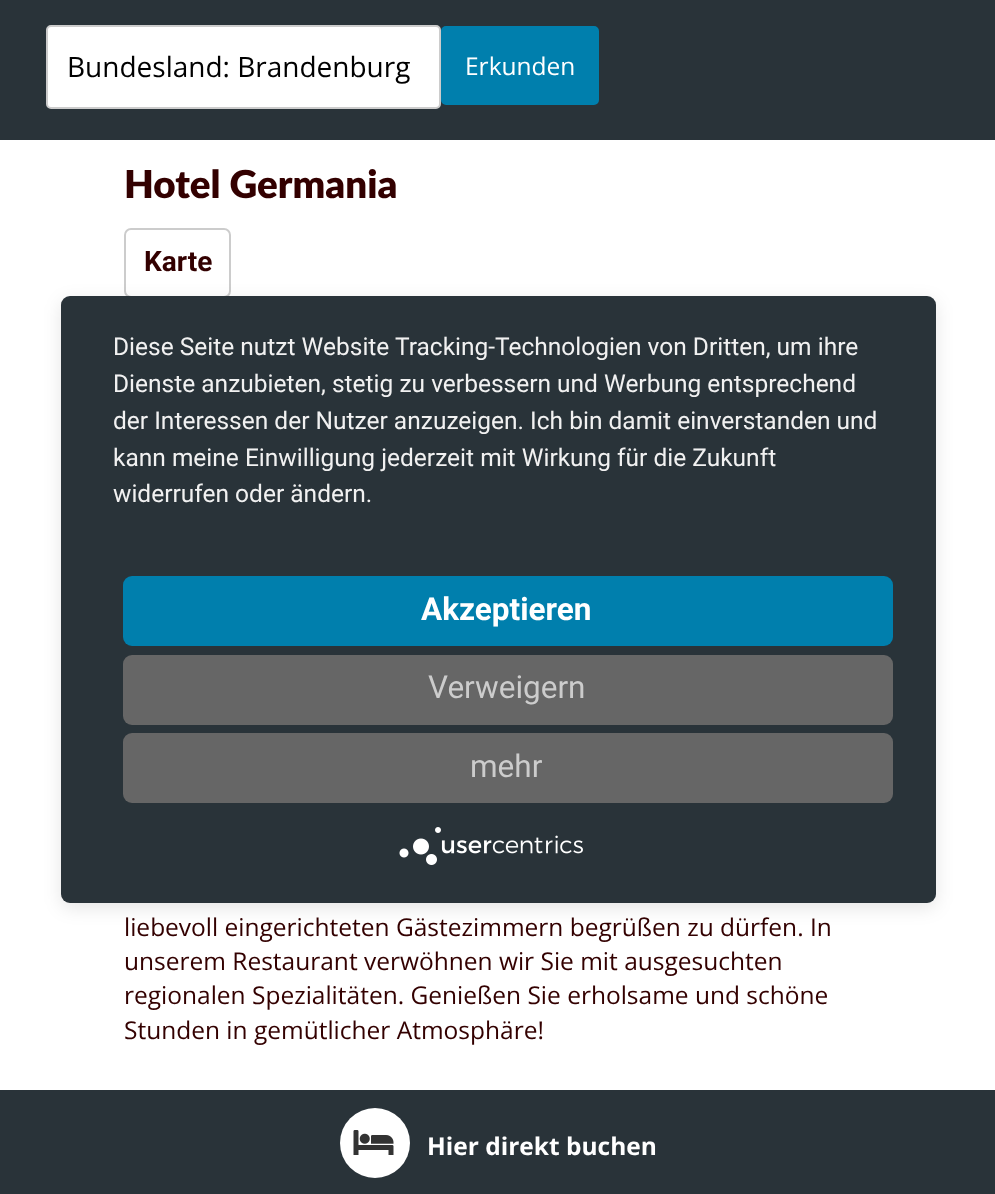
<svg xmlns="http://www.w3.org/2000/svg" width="995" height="1194">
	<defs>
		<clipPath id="clip1"><rect x="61" y="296" width="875" height="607" rx="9" /></clipPath>
	</defs>
	<rect width="100%" height="100%" fill="#FFFFFF" />
	<rect x="0" y="0" width="995" height="140" fill="#293339" />
	<rect x="47" y="26" width="393" height="82" rx="4" fill="#FFFFFF" stroke="#CCCCCC" stroke-width="2" />
	<text x="67" y="77" font-family="Open Sans" font-size="28" fill="#000000">Bundesland: Brandenburg</text>
	<rect x="442" y="27" width="156" height="77" rx="4" fill="#007FAD" stroke="#007FAD" stroke-width="2" />
	<text x="465" y="75" font-family="Open Sans" font-size="24.5" fill="#FFFFFF">Erkunden</text>
	<text x="124" y="198" font-family="Lato" font-size="38.5" font-weight="900" fill="#330000">Hotel Germania</text>
	<rect x="125" y="229" width="105" height="68" rx="6" fill="none" stroke="#CCCCCC" stroke-width="2" />
	<text x="144" y="271" font-family="Roboto" font-size="28" font-weight="700" fill="#330000">Karte</text>
	<g font-family="Open Sans" font-size="24.5" fill="#330000">
		<text x="124" y="936">liebevoll eingerichteten Gästezimmern begrüßen zu dürfen. In</text>
		<text x="124" y="970">unserem Restaurant verwöhnen wir Sie mit ausgesuchten</text>
		<text x="124" y="1004">regionalen Spezialitäten. Genießen Sie erholsame und schöne</text>
		<text x="124" y="1039">Stunden in gemütlicher Atmosphäre!</text>
	</g>
	<rect x="61" y="301" width="875" height="607" rx="9" fill="#000000" fill-opacity="0.1" filter="blur(9px)" />
	<g clip-path="url(#clip1)">
		<rect x="61" y="306" width="875" height="608" fill="#000000" fill-opacity="0.3" filter="blur(31.5px)" />
	</g>
	<rect x="61" y="296" width="875" height="607" rx="9" fill="#293339" />
	<g font-family="Roboto" font-size="24.5" fill="#F1F1F1">
		<text x="113" y="355">Diese Seite nutzt Website Tracking-Technologien von Dritten, um ihre</text>
		<text x="113" y="392">Dienste anzubieten, stetig zu verbessern und Werbung entsprechend</text>
		<text x="113" y="429">der Interessen der Nutzer anzuzeigen. Ich bin damit einverstanden und</text>
		<text x="113" y="466">kann meine Einwilligung jederzeit mit Wirkung für die Zukunft</text>
		<text x="113" y="502">widerrufen oder ändern.</text>
	</g>
	<rect x="123" y="576" width="770" height="70" rx="9" fill="#007FAD" />
	<text x="421" y="620" font-family="Roboto" font-size="31.5" font-weight="700" fill="#FFFFFF">Akzeptieren</text>
	<rect x="123" y="655" width="770" height="70" rx="9" fill="#666666" />
	<text x="428" y="698" font-family="Roboto" font-size="31.5" fill="#CCCCCC">Verweigern</text>
	<rect x="123" y="733" width="770" height="70" rx="9" fill="#666666" />
	<text x="470" y="777" font-family="Roboto" font-size="31.5" fill="#CCCCCC">mehr</text>
	<image x="399" y="827" width="184" height="38" href="assets/img1.png" />
	<rect x="0" y="1090" width="995" height="104" fill="#293339" />
	<circle cx="375" cy="1143" r="35" fill="#FFFFFF" />
	<image x="353" y="1130" width="41" height="25" href="assets/img2.png" />
	<text x="427" y="1155" font-family="Open Sans" font-size="24.5" font-weight="700" fill="#FFFFFF">Hier direkt buchen</text>
</svg>
